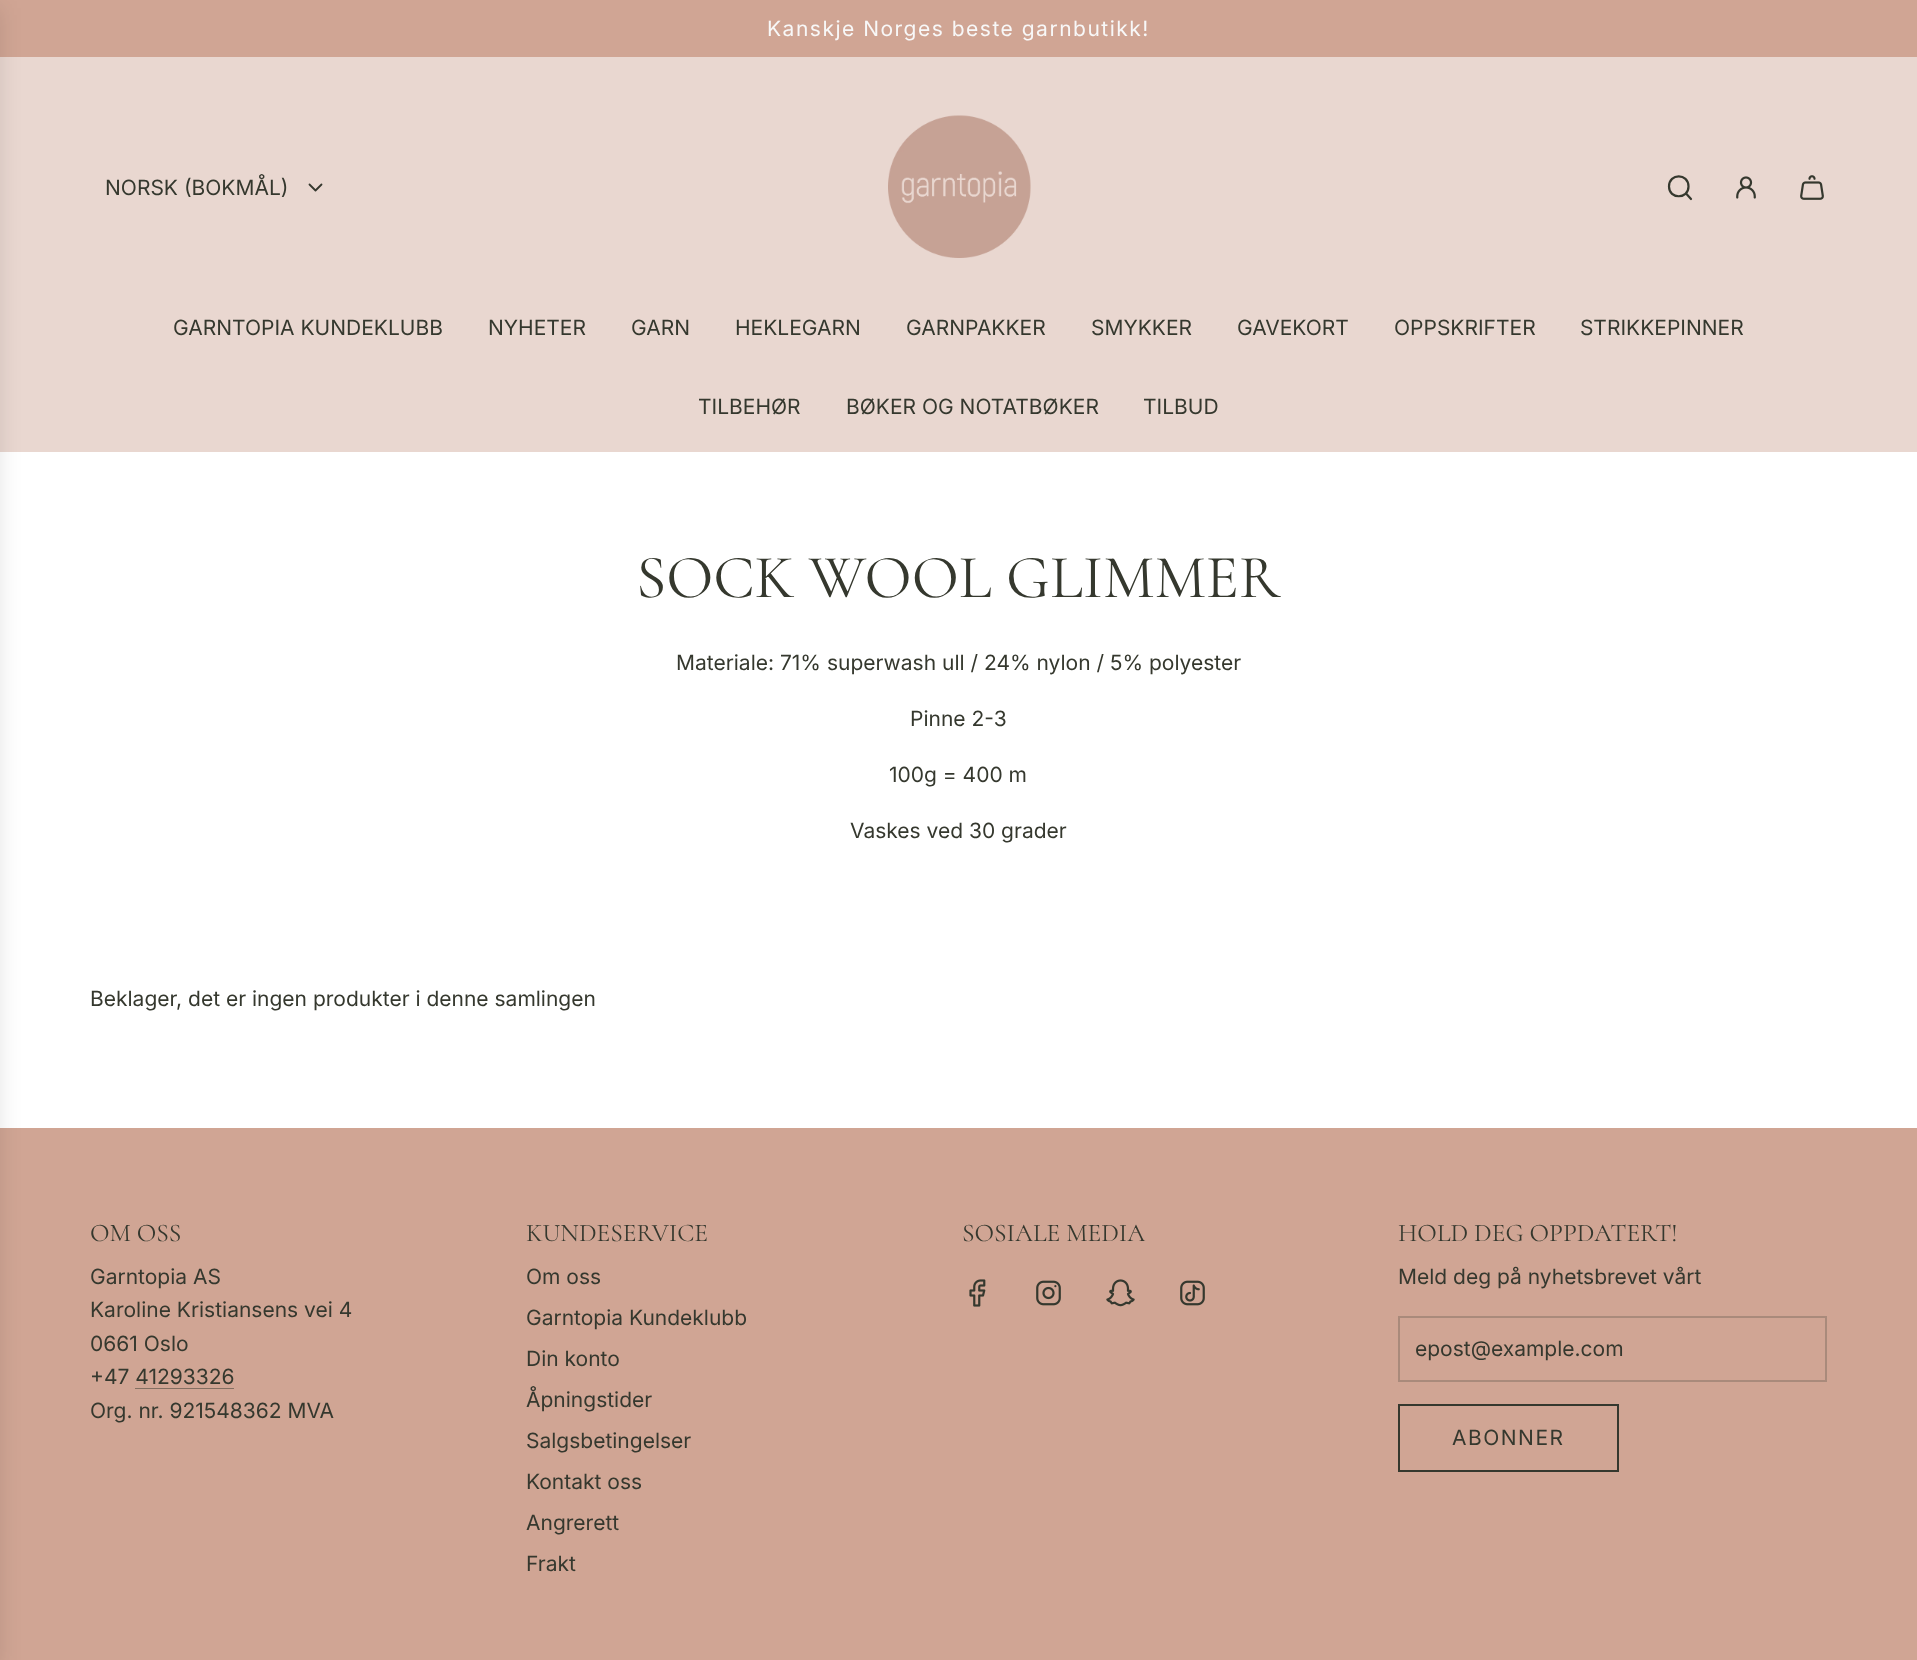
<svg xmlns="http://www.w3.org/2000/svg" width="1917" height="1660">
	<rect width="100%" height="100%" fill="#FFFFFF" />
	<rect x="0" y="0" width="1917" height="57" fill="#D0A594" />
	<text x="767" y="36" font-family="Inter" font-size="21" letter-spacing="1.5" fill="#F8F8F8">Kanskje Norges beste garnbutikk!</text>
	<rect x="0" y="57" width="1917" height="395" fill="#E9D7D0" />
	<rect x="0" y="1128" width="1917" height="532" fill="#D0A594" />
	<rect x="-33" y="8" width="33" height="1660" fill="#000000" fill-opacity="0.1" filter="blur(11px)" />
	<text x="105" y="195" font-family="Inter" font-size="21" fill="#35382E">NORSK (BOKMÅL)</text>
	<path d="M309.5 184.5L315.5 190.5L321.5 184.5" fill="none" stroke="#35382E" stroke-width="1.8" stroke-linecap="round" stroke-linejoin="round" />
	<image x="888" y="115" width="143" height="143" href="assets/img1.png" />
	<path d="M1686.5 194L1691 199M1669 186.5C1669 199.5 1688.5 199.5 1688.5 186.5C1688.5 173 1669 173 1669 186.5Z" fill="none" stroke="#35382E" stroke-width="2.2" stroke-linecap="round" stroke-linejoin="round" />
	<image x="1736" y="176" width="20" height="23" href="assets/img2.png" />
	<image x="1800" y="175" width="24" height="25" href="assets/img3.png" />
	<g font-family="Inter" font-size="21" fill="#35382E">
		<text x="173" y="335">GARNTOPIA KUNDEKLUBB</text>
		<text x="488" y="335">NYHETER</text>
		<text x="631" y="335">GARN</text>
		<text x="735" y="335">HEKLEGARN</text>
		<text x="906" y="335">GARNPAKKER</text>
		<text x="1091" y="335">SMYKKER</text>
		<text x="1237" y="335">GAVEKORT</text>
		<text x="1394" y="335">OPPSKRIFTER</text>
		<text x="1580" y="335">STRIKKEPINNER</text>
		<text x="698" y="414">TILBEHØR</text>
		<text x="846" y="414">BØKER OG NOTATBØKER</text>
		<text x="1143" y="414">TILBUD</text>
	</g>
	<text x="636" y="597" font-family="Cormorant" font-size="61.5" fill="#35382E">SOCK WOOL GLIMMER</text>
	<g font-family="Inter" font-size="21" fill="#35382E">
		<text x="676" y="670">Materiale: 71% superwash ull / 24% nylon / 5% polyester</text>
		<text x="910" y="726">Pinne 2-3</text>
		<text x="889" y="782">100g = 400 m</text>
		<text x="850" y="838">Vaskes ved 30 grader</text>
		<text x="90" y="1006">Beklager, det er ingen produkter i denne samlingen</text>
	</g>
	<text x="90" y="1241" font-family="Cormorant" font-size="25.5" fill="#35382E">OM OSS</text>
	<g font-family="Inter" font-size="21" fill="#35382E">
		<text x="90" y="1284">Garntopia AS</text>
		<text x="90" y="1317">Karoline Kristiansens vei 4</text>
		<text x="90" y="1351">0661 Oslo</text>
		<text x="90" y="1384">+47 41293326</text>
	</g>
	<rect x="135" y="1388" width="99" height="1" fill="#836F61" />
	<text x="90" y="1418" font-family="Inter" font-size="21" fill="#35382E">Org. nr. 921548362 MVA</text>
	<text x="526" y="1241" font-family="Cormorant" font-size="25.5" fill="#35382E">KUNDESERVICE</text>
	<g font-family="Inter" font-size="21" fill="#35382E">
		<text x="526" y="1284">Om oss</text>
		<text x="526" y="1325">Garntopia Kundeklubb</text>
		<text x="526" y="1366">Din konto</text>
		<text x="526" y="1407">Åpningstider</text>
		<text x="526" y="1448">Salgsbetingelser</text>
		<text x="526" y="1489">Kontakt oss</text>
		<text x="526" y="1530">Angrerett</text>
		<text x="526" y="1571">Frakt</text>
	</g>
	<text x="962" y="1241" font-family="Cormorant" font-size="25.5" fill="#35382E">SOSIALE MEDIA</text>
	<image x="969" y="1279" width="17" height="28" href="assets/img4.png" />
	<image x="1036" y="1280" width="25" height="26" href="assets/img5.png" />
	<image x="1106" y="1279" width="29" height="28" href="assets/img6.png" />
	<image x="1180" y="1280" width="25" height="26" href="assets/img7.png" />
	<text x="1398" y="1241" font-family="Cormorant" font-size="25.5" fill="#35382E">HOLD DEG OPPDATERT!</text>
	<text x="1398" y="1284" font-family="Inter" font-size="21" fill="#35382E">Meld deg på nyhetsbrevet vårt</text>
	<rect x="1399" y="1317" width="427" height="64" fill="none" stroke="#A98A7B" stroke-width="2" />
	<text x="1415" y="1356" font-family="Inter" font-size="21" fill="#35382E">epost@example.com</text>
	<rect x="1399" y="1405" width="219" height="66" fill="none" stroke="#35382E" stroke-width="2" />
	<text x="1452" y="1445" font-family="Inter" font-size="21" letter-spacing="1.5" fill="#35382E">ABONNER</text>
</svg>
